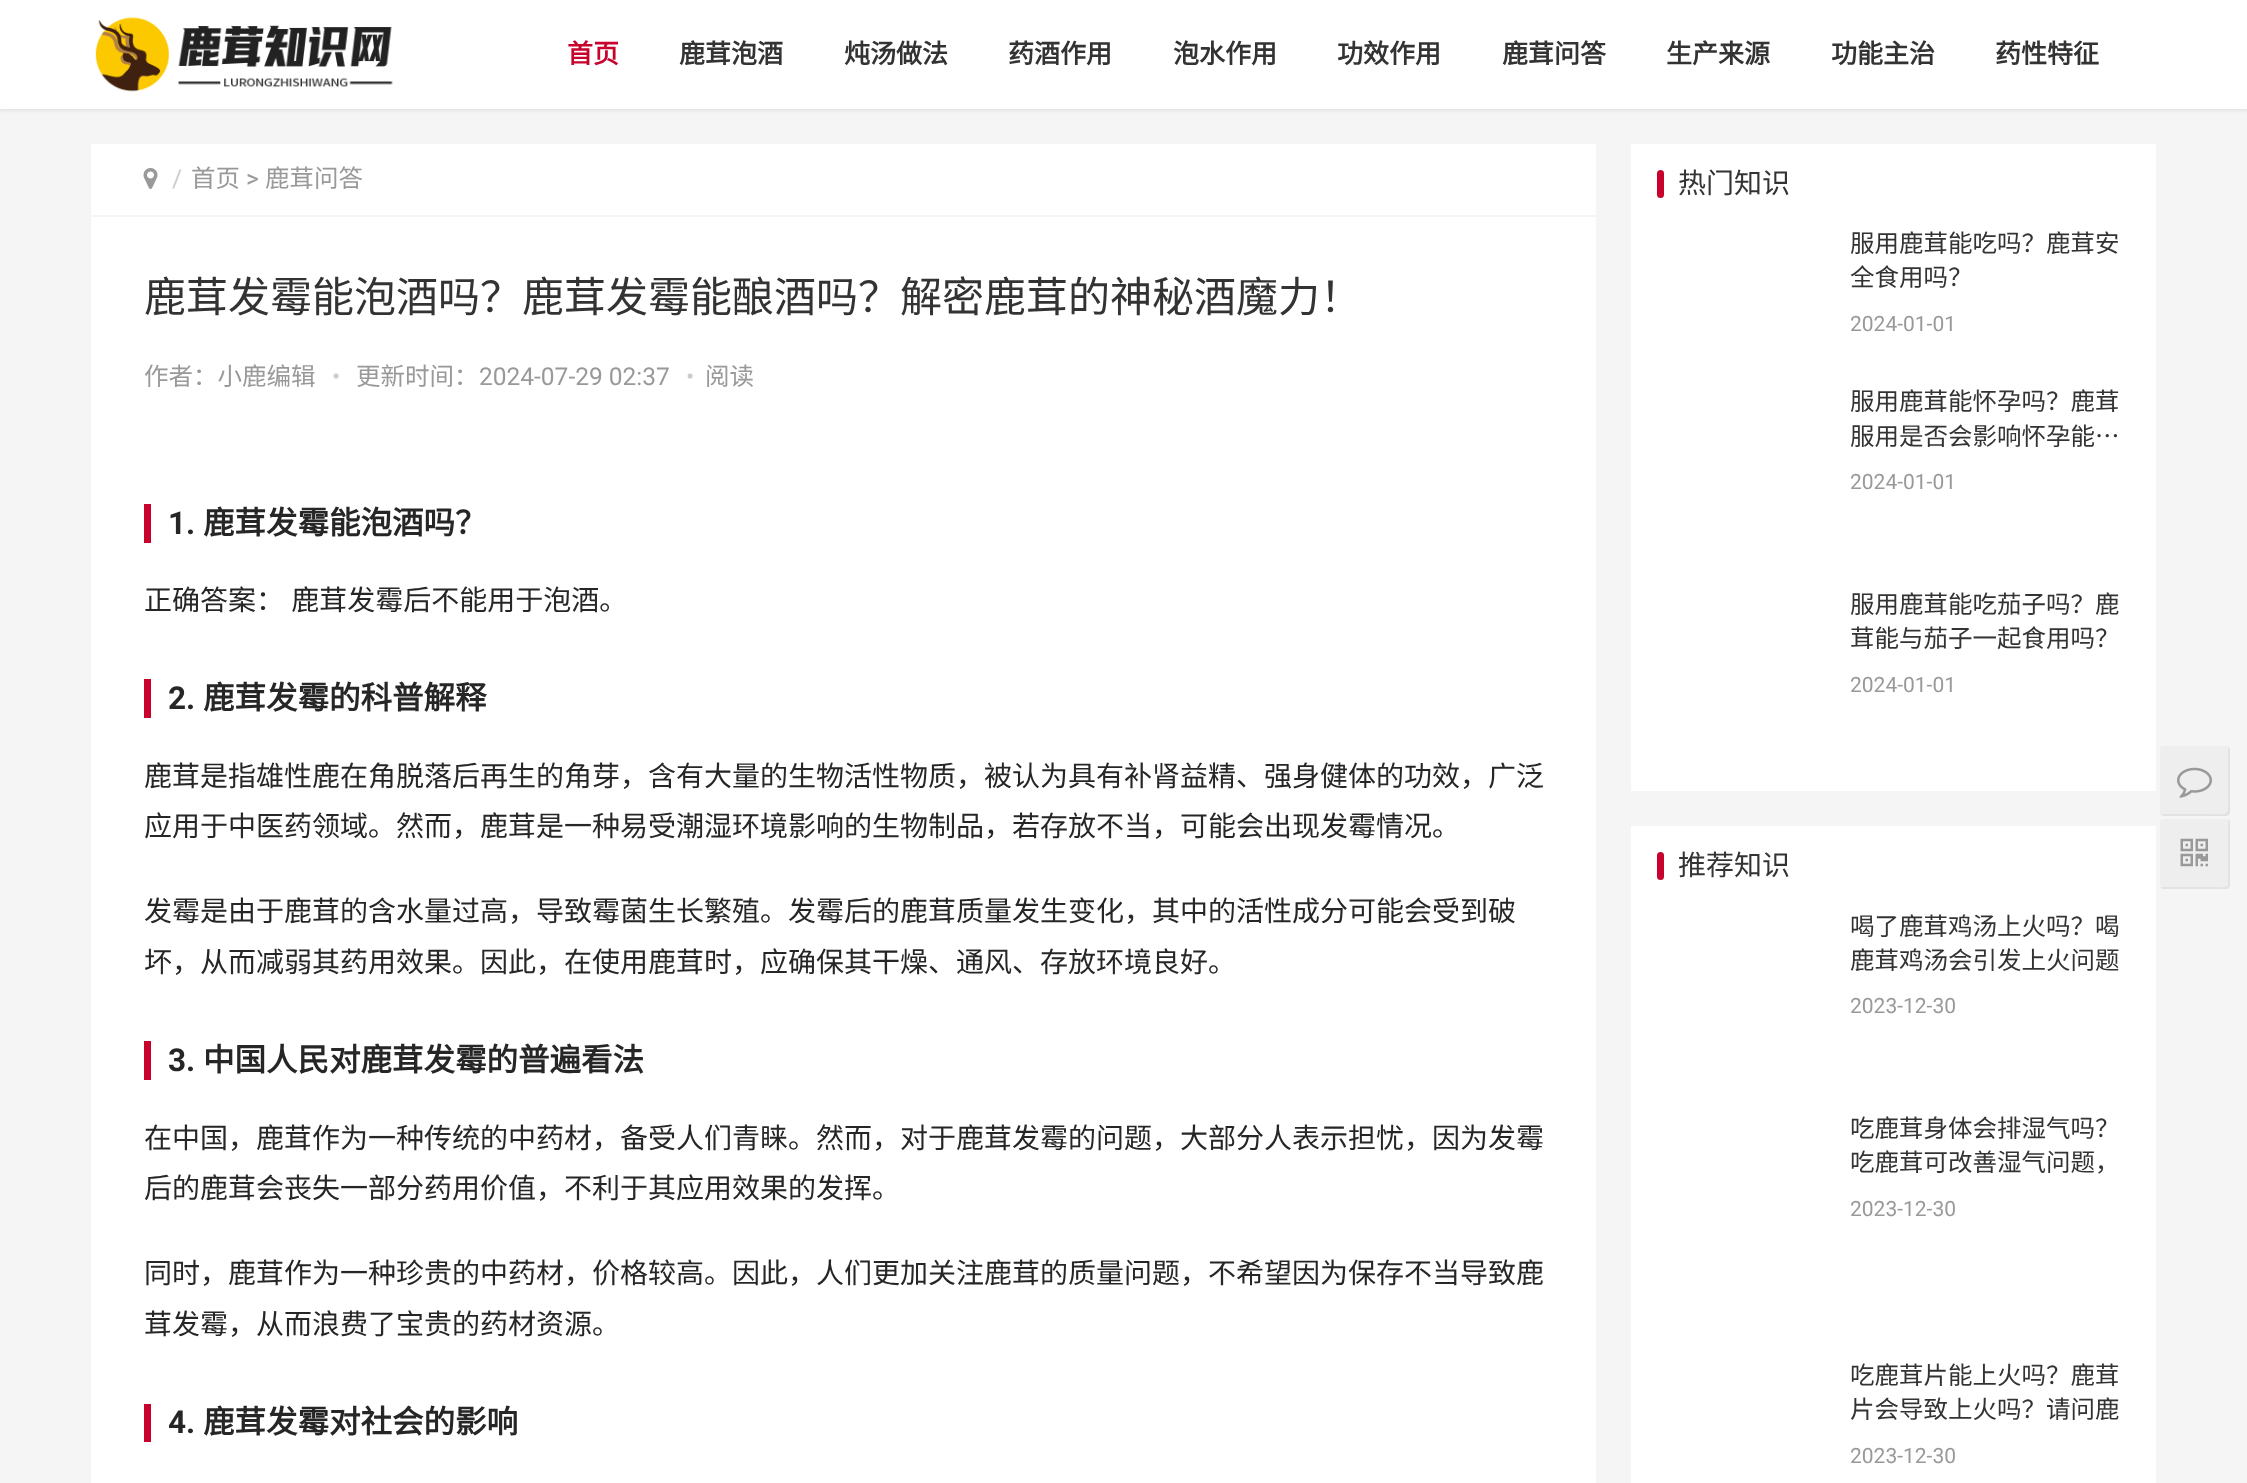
<svg xmlns="http://www.w3.org/2000/svg" width="2247" height="1483">
	<rect width="100%" height="100%" fill="#F5F5F5" />
	<rect x="-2" y="-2" width="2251" height="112" fill="#000000" fill-opacity="0.1" filter="blur(2.5px)" />
	<rect x="0" y="0" width="2247" height="109" fill="#FFFFFF" />
	<image x="95" y="17" width="298" height="75" href="assets/img1.png" />
	<text x="567" y="63" font-family="Noto Sans CJK SC" font-size="26" font-weight="700" fill="#C6022D">首页</text>
	<g font-family="Noto Sans CJK SC" font-size="26" font-weight="700" fill="#333333">
		<text x="679" y="63">鹿茸泡酒</text>
		<text x="844" y="63">炖汤做法</text>
		<text x="1008" y="63">药酒作用</text>
		<text x="1173" y="63">泡水作用</text>
		<text x="1337" y="63">功效作用</text>
		<text x="1502" y="63">鹿茸问答</text>
		<text x="1666" y="63">生产来源</text>
		<text x="1831" y="63">功能主治</text>
		<text x="1995" y="63">药性特征</text>
	</g>
	<rect x="91" y="144" width="1505" height="71" fill="#FFFFFF" />
	<image x="143" y="168" width="15" height="21" href="assets/img2.png" />
	<text x="172" y="187" font-family="Roboto" font-size="24.5" fill="#CCCCCC">/</text>
	<text x="191" y="187" font-family="Noto Sans CJK SC" font-size="24.5" fill="#999999">首页</text>
	<text x="246" y="187" font-family="Roboto" font-size="24.5" fill="#999999">&gt;</text>
	<text x="265" y="187" font-family="Noto Sans CJK SC" font-size="24.5" fill="#999999">鹿茸问答</text>
	<rect x="91" y="217" width="1505" height="1266" fill="#FFFFFF" />
	<text x="144" y="312" font-family="Noto Sans CJK SC" font-size="42" fill="#333333">鹿茸发霉能泡酒吗？鹿茸发霉能酿酒吗？解密鹿茸的神秘酒魔力！</text>
	<text x="144" y="385" font-family="Noto Sans CJK SC" font-size="24.5" fill="#999999">作者：小鹿编辑</text>
	<text x="332" y="385" font-family="Roboto" font-size="24.5" fill="#CCCCCC">•</text>
	<text x="356" y="385" font-family="Noto Sans CJK SC" font-size="24.5" fill="#999999">更新时间：</text>
	<text x="479" y="385" font-family="Roboto" font-size="24.5" fill="#999999">2024-07-29 02:37</text>
	<text x="686" y="385" font-family="Roboto" font-size="24.5" fill="#CCCCCC">•</text>
	<text x="705" y="385" font-family="Noto Sans CJK SC" font-size="24.5" fill="#999999">阅读</text>
	<rect x="144" y="504" width="7" height="39" fill="#C6022D" />
	<text x="168" y="534" font-family="Roboto" font-size="31.5" font-weight="700" fill="#262626">1.</text>
	<text x="203" y="534" font-family="Noto Sans CJK SC" font-size="31.5" font-weight="700" fill="#262626">鹿茸发霉能泡酒吗？</text>
	<text x="144" y="610" word-spacing="1" font-family="Noto Sans CJK SC" font-size="28" fill="#262626">正确答案： 鹿茸发霉后不能用于泡酒。</text>
	<rect x="144" y="679" width="7" height="39" fill="#C6022D" />
	<text x="168" y="709" font-family="Roboto" font-size="31.5" font-weight="700" fill="#262626">2.</text>
	<text x="203" y="709" font-family="Noto Sans CJK SC" font-size="31.5" font-weight="700" fill="#262626">鹿茸发霉的科普解释</text>
	<g font-family="Noto Sans CJK SC" font-size="28" fill="#262626">
		<text x="144" y="786">鹿茸是指雄性鹿在角脱落后再生的角芽，含有大量的生物活性物质，被认为具有补肾益精、强身健体的功效，广泛</text>
		<text x="144" y="836">应用于中医药领域。然而，鹿茸是一种易受潮湿环境影响的生物制品，若存放不当，可能会出现发霉情况。</text>
		<text x="144" y="921">发霉是由于鹿茸的含水量过高，导致霉菌生长繁殖。发霉后的鹿茸质量发生变化，其中的活性成分可能会受到破</text>
		<text x="144" y="972">坏，从而减弱其药用效果。因此，在使用鹿茸时，应确保其干燥、通风、存放环境良好。</text>
	</g>
	<rect x="144" y="1041" width="7" height="39" fill="#C6022D" />
	<text x="168" y="1071" font-family="Roboto" font-size="31.5" font-weight="700" fill="#262626">3.</text>
	<text x="203" y="1071" font-family="Noto Sans CJK SC" font-size="31.5" font-weight="700" fill="#262626">中国人民对鹿茸发霉的普遍看法</text>
	<g font-family="Noto Sans CJK SC" font-size="28" fill="#262626">
		<text x="144" y="1148">在中国，鹿茸作为一种传统的中药材，备受人们青睐。然而，对于鹿茸发霉的问题，大部分人表示担忧，因为发霉</text>
		<text x="144" y="1198">后的鹿茸会丧失一部分药用价值，不利于其应用效果的发挥。</text>
		<text x="144" y="1283">同时，鹿茸作为一种珍贵的中药材，价格较高。因此，人们更加关注鹿茸的质量问题，不希望因为保存不当导致鹿</text>
		<text x="144" y="1334">茸发霉，从而浪费了宝贵的药材资源。</text>
	</g>
	<rect x="144" y="1404" width="7" height="38" fill="#C6022D" />
	<text x="168" y="1433" font-family="Roboto" font-size="31.5" font-weight="700" fill="#262626">4.</text>
	<text x="203" y="1433" font-family="Noto Sans CJK SC" font-size="31.5" font-weight="700" fill="#262626">鹿茸发霉对社会的影响</text>
	<rect x="1631" y="144" width="525" height="647" fill="#FFFFFF" />
	<rect x="1657" y="170" width="7" height="28" rx="3.5" fill="#C6022D" />
	<text x="1678" y="193" font-family="Noto Sans CJK SC" font-size="28" fill="#333333">热门知识</text>
	<g font-family="Noto Sans CJK SC" font-size="24.5" fill="#333333">
		<text x="1850" y="252">服用鹿茸能吃吗？鹿茸安</text>
		<text x="1850" y="286">全食用吗？</text>
	</g>
	<text x="1850" y="331" font-family="Roboto" font-size="21" fill="#999999">2024-01-01</text>
	<g font-family="Noto Sans CJK SC" font-size="24.5" fill="#333333">
		<text x="1850" y="410">服用鹿茸能怀孕吗？鹿茸</text>
		<text x="1850" y="445">服用是否会影响怀孕能…</text>
	</g>
	<text x="1850" y="489" font-family="Roboto" font-size="21" fill="#999999">2024-01-01</text>
	<g font-family="Noto Sans CJK SC" font-size="24.5" fill="#333333">
		<text x="1850" y="613">服用鹿茸能吃茄子吗？鹿</text>
		<text x="1850" y="647">茸能与茄子一起食用吗？</text>
	</g>
	<text x="1850" y="692" font-family="Roboto" font-size="21" fill="#999999">2024-01-01</text>
	<rect x="1631" y="826" width="525" height="657" fill="#FFFFFF" />
	<rect x="1657" y="852" width="7" height="28" rx="3.5" fill="#C6022D" />
	<text x="1678" y="875" font-family="Noto Sans CJK SC" font-size="28" fill="#333333">推荐知识</text>
	<g font-family="Noto Sans CJK SC" font-size="24.5" fill="#333333">
		<text x="1850" y="935">喝了鹿茸鸡汤上火吗？喝</text>
		<text x="1850" y="969">鹿茸鸡汤会引发上火问题</text>
	</g>
	<text x="1850" y="1013" font-family="Roboto" font-size="21" fill="#999999">2023-12-30</text>
	<g font-family="Noto Sans CJK SC" font-size="24.5" fill="#333333">
		<text x="1850" y="1137">吃鹿茸身体会排湿气吗？</text>
		<text x="1850" y="1171">吃鹿茸可改善湿气问题，</text>
	</g>
	<text x="1850" y="1216" font-family="Roboto" font-size="21" fill="#999999">2023-12-30</text>
	<g font-family="Noto Sans CJK SC" font-size="24.5" fill="#333333">
		<text x="1850" y="1384">吃鹿茸片能上火吗？鹿茸</text>
		<text x="1850" y="1418">片会导致上火吗？请问鹿</text>
	</g>
	<text x="1850" y="1463" font-family="Roboto" font-size="21" fill="#999999">2023-12-30</text>
	<rect x="2160" y="746" width="70" height="70" rx="4" fill="#EEEEEE" />
	<path d="M2161 814C2161 815 2163 816 2164 816H2226C2228 816 2230 814 2230 812V750C2230 749 2229 747 2228 747V789C2228 819 2233 814 2203 814Z" fill="#E2E2E2" />
	<image x="2177" y="767" width="35" height="31" href="assets/img3.png" />
	<rect x="2160" y="819" width="70" height="70" rx="4" fill="#EEEEEE" />
	<path d="M2161 887C2161 888 2163 889 2164 889H2226C2228 889 2230 887 2230 885V823C2230 821 2229 820 2228 819C2229 823 2228 827 2228 832V884C2228 889 2219 887 2214 887Z" fill="#E2E2E2" />
	<image x="2180" y="838" width="28" height="29" href="assets/img4.png" />
</svg>
